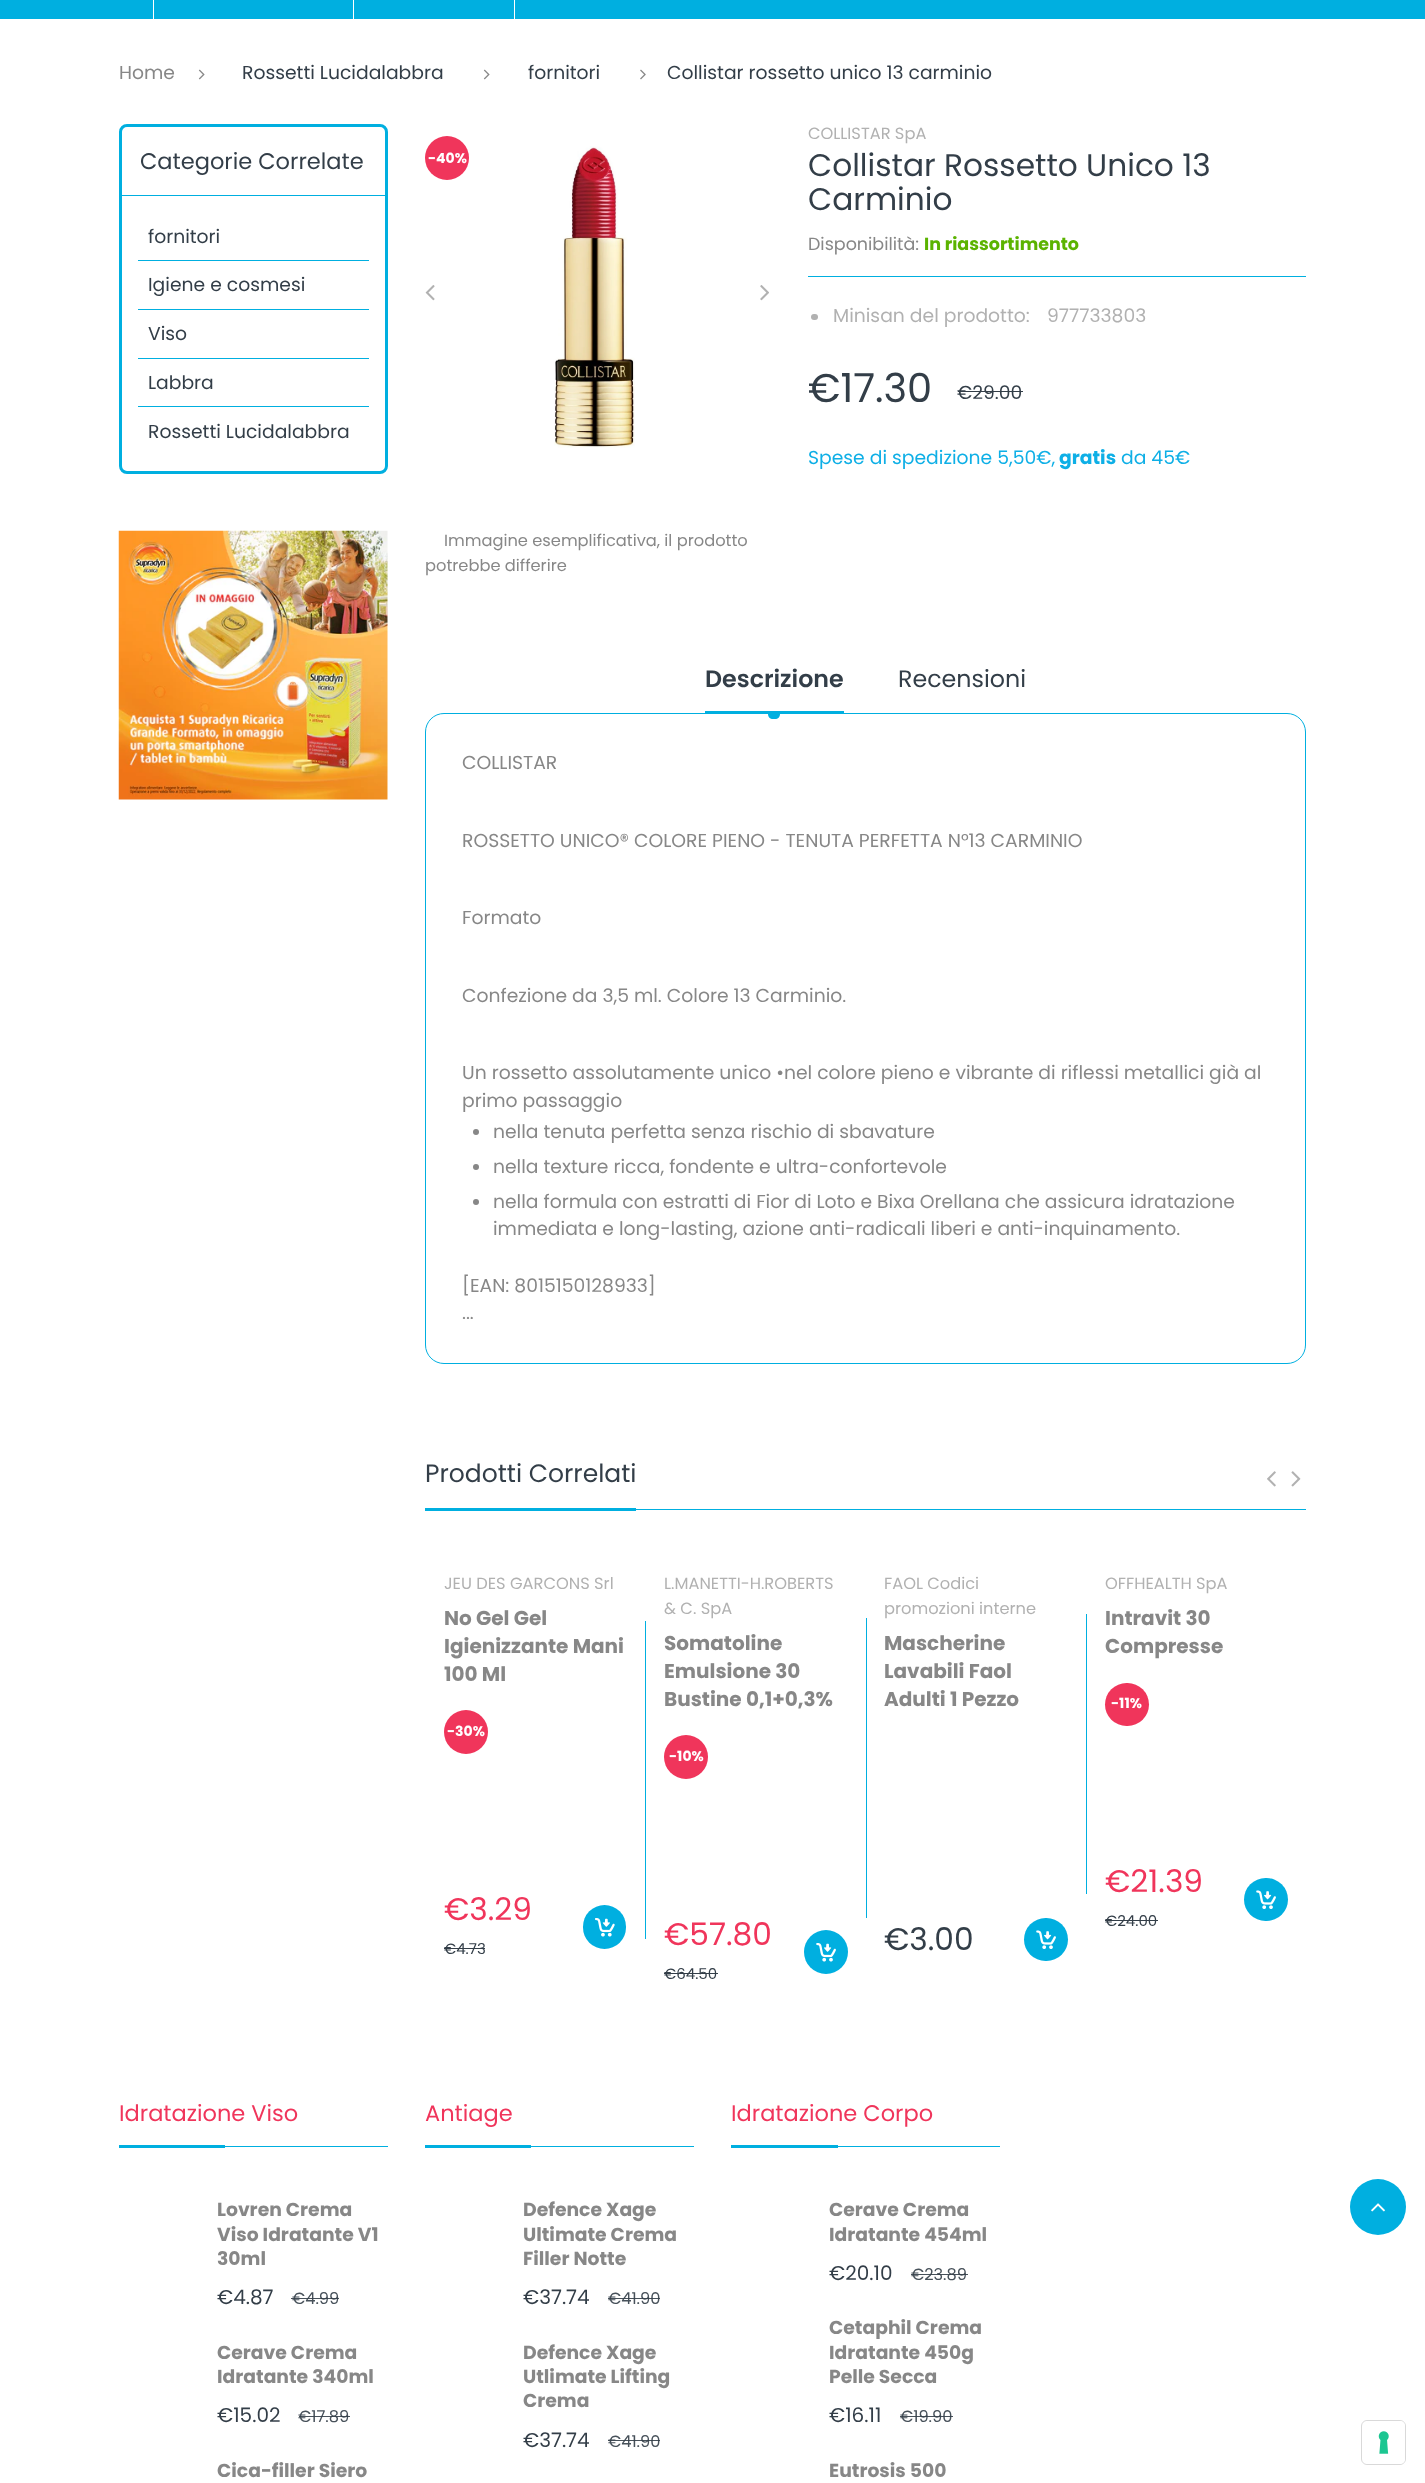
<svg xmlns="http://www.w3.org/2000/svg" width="1425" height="2483">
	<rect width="100%" height="100%" fill="#FFFFFF" />
	<rect x="0" y="0" width="1425" height="19" fill="#00AFE0" />
	<rect x="153" y="0" width="1" height="19" fill="#FFFFFF" />
	<rect x="353" y="0" width="1" height="19" fill="#FFFFFF" />
	<rect x="514" y="0" width="1" height="19" fill="#FFFFFF" />
	<text x="119" y="79" font-family="Poppins" font-size="18.75" fill="#878787">Home</text>
	<image x="198" y="69" width="7" height="11" href="assets/img1.png" />
	<text x="242" y="79" font-family="Poppins" font-size="18.75" fill="#333E48">Rossetti Lucidalabbra</text>
	<image x="483" y="69" width="7" height="11" href="assets/img1.png" />
	<text x="528" y="79" font-family="Poppins" font-size="18.75" fill="#333E48">fornitori</text>
	<image x="640" y="69" width="6" height="11" href="assets/img2.png" />
	<text x="667" y="79" font-family="Poppins" font-size="18.75" fill="#333E48">Collistar rossetto unico 13 carminio</text>
	<rect x="120.5" y="125.5" width="266" height="347" rx="6.5" fill="none" stroke="#00AFE0" stroke-width="3" />
	<rect x="121" y="195" width="264" height="1" fill="#00AFE0" />
	<text x="140" y="169" font-family="Poppins" font-size="22.5" fill="#333E48">Categorie Correlate</text>
	<rect x="138" y="260" width="231" height="1" fill="#00AFE0" />
	<text x="148" y="243" font-family="Poppins" font-size="18.75" fill="#333E48">fornitori</text>
	<rect x="138" y="309" width="231" height="1" fill="#00AFE0" />
	<text x="148" y="291" font-family="Poppins" font-size="18.75" fill="#333E48">Igiene e cosmesi</text>
	<rect x="138" y="358" width="231" height="1" fill="#00AFE0" />
	<text x="148" y="340" font-family="Poppins" font-size="18.75" fill="#333E48">Viso</text>
	<rect x="138" y="406" width="231" height="1" fill="#00AFE0" />
	<g font-family="Poppins" font-size="18.75" fill="#333E48">
		<text x="148" y="389">Labbra</text>
		<text x="148" y="438">Rossetti Lucidalabbra</text>
	</g>
	<image x="118" y="530" width="270" height="270" href="assets/img3.png" />
	<circle cx="447" cy="158" r="22" fill="#F0355B" />
	<text x="428" y="163" font-family="Poppins" font-size="14" font-weight="700" fill="#FFFFFF">-40%</text>
	<image x="554" y="146" width="81" height="302" href="assets/img4.png" />
	<image x="425" y="285" width="10" height="16" href="assets/img5.png" />
	<image x="760" y="285" width="9" height="16" href="assets/img6.png" />
	<g font-family="Poppins" font-size="16.25" fill="#878787">
		<text x="444" y="546">Immagine esemplificativa, il prodotto</text>
		<text x="425" y="571">potrebbe differire</text>
	</g>
	<text x="808" y="139" font-family="Poppins" font-size="16.25" fill="#B1B1B1">COLLISTAR SpA</text>
	<g font-family="Poppins" font-size="31.25" fill="#333E48">
		<text x="808" y="176">Collistar Rossetto Unico 13</text>
		<text x="808" y="210">Carminio</text>
	</g>
	<rect x="808" y="276" width="498" height="1" fill="#00AFE0" />
	<text x="808" y="250" font-family="Poppins" font-size="17.5" fill="#878787">Disponibilità:</text>
	<text x="924" y="250" font-family="Poppins" font-size="17.5" font-weight="700" fill="#5BB300">In riassortimento</text>
	<rect x="811" y="314" width="7" height="6" rx="3" fill="#B1B1B1" />
	<g font-family="Poppins" font-size="18.75" fill="#B1B1B1">
		<text x="833" y="322">Minisan del prodotto:</text>
		<text x="1047" y="322">977733803</text>
	</g>
	<text x="808" y="402" font-family="Poppins" font-size="40" fill="#333E48">€17.30</text>
	<text x="957" y="399" font-family="Poppins" font-size="18.75" fill="#333E48">€29.00</text>
	<rect x="958" y="391" width="65" height="1" fill="#333E48" />
	<text x="808" y="464" font-family="Poppins" font-size="18.75" fill="#0EAFE6">Spese di spedizione 5,50€,</text>
	<text x="1059" y="464" font-family="Poppins" font-size="18.75" font-weight="700" fill="#0EAFE6">gratis</text>
	<text x="1121" y="464" font-family="Poppins" font-size="18.75" fill="#0EAFE6">da 45€</text>
	<text x="705" y="687" font-family="Poppins" font-size="23.75" font-weight="600" fill="#333E48">Descrizione</text>
	<rect x="705" y="711" width="139" height="2" fill="#00AFE0" />
	<rect x="425.5" y="713.5" width="880" height="650" rx="18.5" fill="none" stroke="#00AFE0" />
	<path d="M768 714H780C780 717 778 719 775 719H773C770 719 768 717 768 714Z" fill="#00AFE0" />
	<text x="898" y="687" font-family="Poppins" font-size="23.75" fill="#333E48">Recensioni</text>
	<g font-family="Poppins" font-size="18.75" fill="#878787">
		<text x="462" y="769">COLLISTAR</text>
		<text x="462" y="847">ROSSETTO UNICO® COLORE PIENO - TENUTA PERFETTA N°13 CARMINIO</text>
		<text x="462" y="924">Formato</text>
		<text x="462" y="1002">Confezione da 3,5 ml. Colore 13 Carminio.</text>
		<text x="462" y="1079">Un rossetto assolutamente unico •nel colore pieno e vibrante di riflessi metallici già al</text>
		<text x="462" y="1107">primo passaggio</text>
	</g>
	<circle cx="476" cy="1132" r="3" fill="#878787" />
	<text x="493" y="1138" font-family="Poppins" font-size="18.75" fill="#878787">nella tenuta perfetta senza rischio di sbavature</text>
	<circle cx="476" cy="1167" r="3" fill="#878787" />
	<text x="493" y="1173" font-family="Poppins" font-size="18.75" fill="#878787">nella texture ricca, fondente e ultra-confortevole</text>
	<circle cx="476" cy="1202" r="3" fill="#878787" />
	<g font-family="Poppins" font-size="18.75" fill="#878787">
		<text x="493" y="1208">nella formula con estratti di Fior di Loto e Bixa Orellana che assicura idratazione</text>
		<text x="493" y="1235">immediata e long-lasting, azione anti-radicali liberi e anti-inquinamento.</text>
		<text x="462" y="1292">[EAN: 8015150128933]</text>
		<text x="462" y="1319">...</text>
	</g>
	<rect x="636" y="1509" width="670" height="1" fill="#00AFE0" />
	<text x="425" y="1482" font-family="Poppins" font-size="25" fill="#333E48">Prodotti Correlati</text>
	<rect x="425" y="1508" width="211" height="3" fill="#00AFE0" />
	<image x="1267" y="1471" width="9" height="16" href="assets/img7.png" />
	<image x="1291" y="1471" width="10" height="16" href="assets/img8.png" />
	<text x="444" y="1589" font-family="Poppins" font-size="16.25" fill="#B1B1B1">JEU DES GARCONS Srl</text>
	<g font-family="Poppins" font-size="20" font-weight="700" fill="#878787">
		<text x="444" y="1625">No Gel Gel</text>
		<text x="444" y="1653">Igienizzante Mani</text>
		<text x="444" y="1681">100 Ml</text>
	</g>
	<circle cx="466" cy="1732" r="22" fill="#F0355B" />
	<text x="447" y="1736" font-family="Poppins" font-size="14" font-weight="700" fill="#FFFFFF">-30%</text>
	<text x="444" y="1920" font-family="Poppins" font-size="31.25" fill="#F0355B">€3.29</text>
	<text x="444" y="1954" font-family="Poppins" font-size="15" fill="#333E48">€4.73</text>
	<rect x="444" y="1948" width="41" height="1" fill="#333E48" />
	<rect x="583" y="1905" width="43" height="44" rx="21.5" fill="#00AFE0" />
	<image x="595" y="1918" width="20" height="19" href="assets/img9.png" />
	<rect x="645" y="1621" width="1" height="318" fill="#00AFE0" />
	<g font-family="Poppins" font-size="16.25" fill="#B1B1B1">
		<text x="664" y="1589">L.MANETTI-H.ROBERTS</text>
		<text x="664" y="1614">&amp; C. SpA</text>
	</g>
	<g font-family="Poppins" font-size="20" font-weight="700" fill="#878787">
		<text x="664" y="1650">Somatoline</text>
		<text x="664" y="1678">Emulsione 30</text>
		<text x="664" y="1706">Bustine 0,1+0,3%</text>
	</g>
	<circle cx="686" cy="1757" r="22" fill="#F0355B" />
	<text x="669" y="1761" font-family="Poppins" font-size="14" font-weight="700" fill="#FFFFFF">-10%</text>
	<text x="664" y="1945" font-family="Poppins" font-size="31.25" fill="#F0355B">€57.80</text>
	<text x="664" y="1979" font-family="Poppins" font-size="15" fill="#333E48">€64.50</text>
	<rect x="664" y="1973" width="54" height="1" fill="#333E48" />
	<circle cx="826" cy="1952" r="22" fill="#00AFE0" />
	<image x="816" y="1943" width="20" height="19" href="assets/img10.png" />
	<rect x="866" y="1618" width="1" height="300" fill="#00AFE0" />
	<g font-family="Poppins" font-size="16.25" fill="#B1B1B1">
		<text x="884" y="1589">FAOL Codici</text>
		<text x="884" y="1614">promozioni interne</text>
	</g>
	<g font-family="Poppins" font-size="20" font-weight="700" fill="#878787">
		<text x="884" y="1650">Mascherine</text>
		<text x="884" y="1678">Lavabili Faol</text>
		<text x="884" y="1706">Adulti 1 Pezzo</text>
	</g>
	<text x="884" y="1950" font-family="Poppins" font-size="31.25" fill="#333E48">€3.00</text>
	<rect x="1024" y="1918" width="44" height="43" rx="21.5" fill="#00AFE0" />
	<image x="1036" y="1930" width="20" height="19" href="assets/img11.png" />
	<rect x="1086" y="1614" width="1" height="280" fill="#00AFE0" />
	<text x="1105" y="1589" font-family="Poppins" font-size="16.25" fill="#B1B1B1">OFFHEALTH SpA</text>
	<g font-family="Poppins" font-size="20" font-weight="700" fill="#878787">
		<text x="1105" y="1625">Intravit 30</text>
		<text x="1105" y="1653">Compresse</text>
	</g>
	<rect x="1105" y="1683" width="44" height="43" rx="21.5" fill="#F0355B" />
	<text x="1111" y="1708" font-family="Poppins" font-size="14" font-weight="700" fill="#FFFFFF">-11%</text>
	<text x="1105" y="1892" font-family="Poppins" font-size="31.25" fill="#F0355B">€21.39</text>
	<text x="1105" y="1926" font-family="Poppins" font-size="15" fill="#333E48">€24.00</text>
	<rect x="1105" y="1920" width="53" height="1" fill="#333E48" />
	<rect x="1244" y="1878" width="44" height="43" rx="21.5" fill="#00AFE0" />
	<image x="1256" y="1890" width="20" height="19" href="assets/img11.png" />
	<rect x="225" y="2146" width="163" height="1" fill="#00AFE0" />
	<text x="119" y="2121" font-family="Poppins" font-size="22.5" fill="#F0355B">Idratazione Viso</text>
	<rect x="119" y="2145" width="106" height="3" fill="#00AFE0" />
	<g font-family="Poppins" font-size="18.75" font-weight="700" fill="#878787">
		<text x="217" y="2216">Lovren Crema</text>
		<text x="217" y="2241">Viso Idratante V1</text>
		<text x="217" y="2265">30ml</text>
	</g>
	<text x="217" y="2304" font-family="Poppins" font-size="20" fill="#333E48">€4.87</text>
	<text x="292" y="2304" font-family="Poppins" font-size="16.25" fill="#47515A">€4.99</text>
	<rect x="291" y="2298" width="48" height="1" fill="#333E48" fill-opacity="0.9" />
	<g font-family="Poppins" font-size="18.75" font-weight="700" fill="#878787">
		<text x="217" y="2359">Cerave Crema</text>
		<text x="217" y="2383">Idratante 340ml</text>
	</g>
	<text x="217" y="2422" font-family="Poppins" font-size="20" fill="#333E48">€15.02</text>
	<text x="298" y="2422" font-family="Poppins" font-size="16.25" fill="#47515A">€17.89</text>
	<rect x="299" y="2416" width="51" height="1" fill="#333E48" fill-opacity="0.9" />
	<text x="217" y="2477" font-family="Poppins" font-size="18.75" font-weight="700" fill="#878787">Cica-filler Siero</text>
	<rect x="531" y="2146" width="163" height="1" fill="#00AFE0" />
	<text x="425" y="2121" font-family="Poppins" font-size="22.5" fill="#F0355B">Antiage</text>
	<rect x="425" y="2145" width="106" height="3" fill="#00AFE0" />
	<g font-family="Poppins" font-size="18.75" font-weight="700" fill="#878787">
		<text x="523" y="2216">Defence Xage</text>
		<text x="523" y="2241">Ultimate Crema</text>
		<text x="523" y="2265">Filler Notte</text>
	</g>
	<text x="523" y="2304" font-family="Poppins" font-size="20" fill="#333E48">€37.74</text>
	<text x="608" y="2304" font-family="Poppins" font-size="16.25" fill="#47515A">€41.90</text>
	<rect x="608" y="2298" width="52" height="1" fill="#333E48" fill-opacity="0.9" />
	<g font-family="Poppins" font-size="18.75" font-weight="700" fill="#878787">
		<text x="523" y="2359">Defence Xage</text>
		<text x="523" y="2383">Utlimate Lifting</text>
		<text x="523" y="2407">Crema</text>
	</g>
	<text x="523" y="2447" font-family="Poppins" font-size="20" fill="#333E48">€37.74</text>
	<text x="608" y="2447" font-family="Poppins" font-size="16.25" fill="#47515A">€41.90</text>
	<rect x="608" y="2440" width="52" height="1" fill="#333E48" fill-opacity="0.9" />
	<rect x="838" y="2146" width="162" height="1" fill="#00AFE0" />
	<text x="731" y="2121" font-family="Poppins" font-size="22.5" fill="#F0355B">Idratazione Corpo</text>
	<rect x="731" y="2145" width="107" height="3" fill="#00AFE0" />
	<g font-family="Poppins" font-size="18.75" font-weight="700" fill="#878787">
		<text x="829" y="2216">Cerave Crema</text>
		<text x="829" y="2241">Idratante 454ml</text>
	</g>
	<text x="829" y="2280" font-family="Poppins" font-size="20" fill="#333E48">€20.10</text>
	<text x="911" y="2280" font-family="Poppins" font-size="16.25" fill="#47515A">€23.89</text>
	<rect x="911" y="2274" width="57" height="1" fill="#333E48" fill-opacity="0.9" />
	<g font-family="Poppins" font-size="18.75" font-weight="700" fill="#878787">
		<text x="829" y="2334">Cetaphil Crema</text>
		<text x="829" y="2359">Idratante 450g</text>
		<text x="829" y="2383">Pelle Secca</text>
	</g>
	<text x="829" y="2422" font-family="Poppins" font-size="20" fill="#333E48">€16.11</text>
	<text x="900" y="2422" font-family="Poppins" font-size="16.25" fill="#47515A">€19.90</text>
	<rect x="900" y="2416" width="53" height="1" fill="#333E48" fill-opacity="0.9" />
	<text x="829" y="2477" font-family="Poppins" font-size="18.75" font-weight="700" fill="#878787">Eutrosis 500</text>
	<circle cx="1378" cy="2207" r="28" fill="#00AFE0" />
	<image x="1371" y="2203" width="14" height="9" href="assets/img12.png" />
	<rect x="1361.5" y="2420.5" width="44" height="44" rx="5.5" fill="none" stroke="#D9D9D9" />
	<rect x="1363" y="2421" width="42" height="43" rx="5" fill="#FFFFFF" />
	<image x="1378" y="2431" width="11" height="23" href="assets/img13.png" />
</svg>
